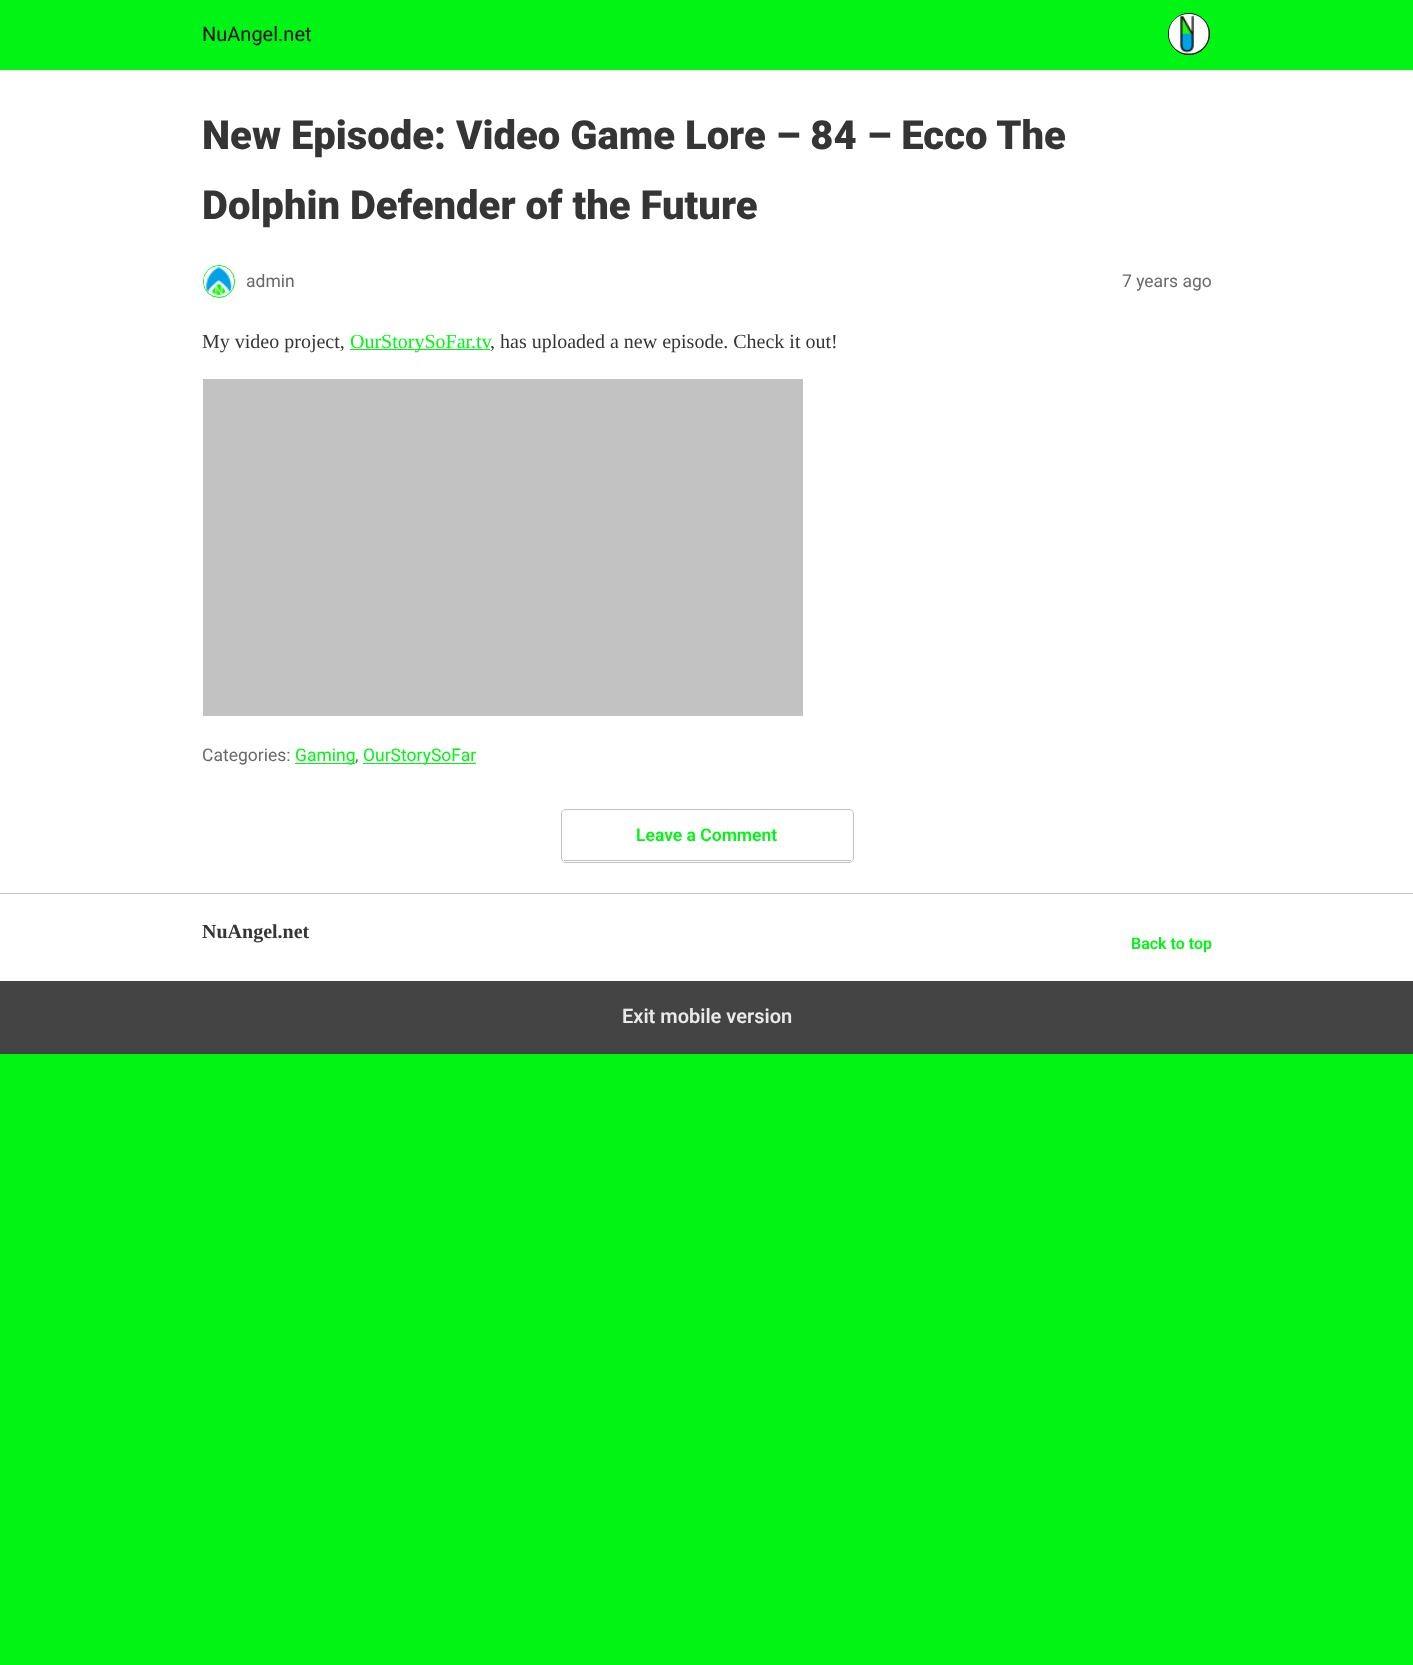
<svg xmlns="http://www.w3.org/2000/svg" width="1413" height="1665">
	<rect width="100%" height="100%" fill="#00F414" />
	<rect x="0" y="70" width="1413" height="911" fill="#FFFFFF" />
	<text x="202" y="41" font-family="Roboto" font-size="20" fill="#0A0A0A">NuAngel.net</text>
	<circle cx="1189" cy="34" r="20.5" fill="#0A0A0A" stroke="#0A0A0A" />
	<image x="1168" y="13" width="41" height="41" href="assets/img1.png" />
	<g font-family="Roboto" font-size="40" font-weight="900" fill="#353535">
		<text x="202" y="149">New Episode: Video Game Lore – 84 – Ecco The</text>
		<text x="202" y="219">Dolphin Defender of the Future</text>
	</g>
	<rect x="203.5" y="265.5" width="31" height="32" rx="15.5" fill="none" stroke="#00F414" />
	<image x="203" y="266" width="31" height="30" href="assets/img2.png" />
	<g font-family="Roboto" font-size="17.5" fill="#696969">
		<text x="246" y="287">admin</text>
		<text x="1122" y="287">7 years ago</text>
	</g>
	<text x="202" y="348" font-family="Liberation Serif" font-size="20" fill="#353535">My video project,</text>
	<rect x="350" y="349" width="140" height="1" fill="#00F414" />
	<text x="350" y="348" font-family="Liberation Serif" font-size="20" fill="#00F414">OurStorySoFar.tv</text>
	<text x="490" y="348" font-family="Liberation Serif" font-size="20" fill="#353535">, has uploaded a new episode. Check it out!</text>
	<rect x="203" y="379" width="600" height="337" fill="#C2C2C2" />
	<text x="202" y="761" font-family="Roboto" font-size="17.5" fill="#696969">Categories:</text>
	<rect x="295" y="763" width="60" height="1" fill="#00F414" />
	<text x="295" y="761" font-family="Roboto" font-size="17.5" fill="#00F414">Gaming</text>
	<text x="355" y="761" font-family="Roboto" font-size="17.5" fill="#696969">,</text>
	<rect x="363" y="763" width="113" height="1" fill="#00F414" />
	<text x="363" y="761" font-family="Roboto" font-size="17.5" fill="#00F414">OurStorySoFar</text>
	<rect x="561.5" y="809.5" width="292" height="53" rx="4.5" fill="none" stroke="#C2C2C2" />
	<rect x="564" y="860" width="287" height="1" fill="#C2C2C2" />
	<text x="636" y="841" font-family="Roboto" font-size="17.5" font-weight="600" fill="#00F414">Leave a Comment</text>
	<rect x="0" y="893" width="1413" height="1" fill="#C2C2C2" />
	<text x="202" y="938" font-family="Liberation Serif" font-size="20" font-weight="700" fill="#353535">NuAngel.net</text>
	<text x="1131" y="949" font-family="Roboto" font-size="16" font-weight="600" fill="#00F414">Back to top</text>
	<rect x="0" y="981" width="1413" height="73" fill="#444444" />
	<text x="622" y="1023" font-family="Roboto" font-size="20" font-weight="600" fill="#EAEAEA">Exit mobile version</text>
</svg>
